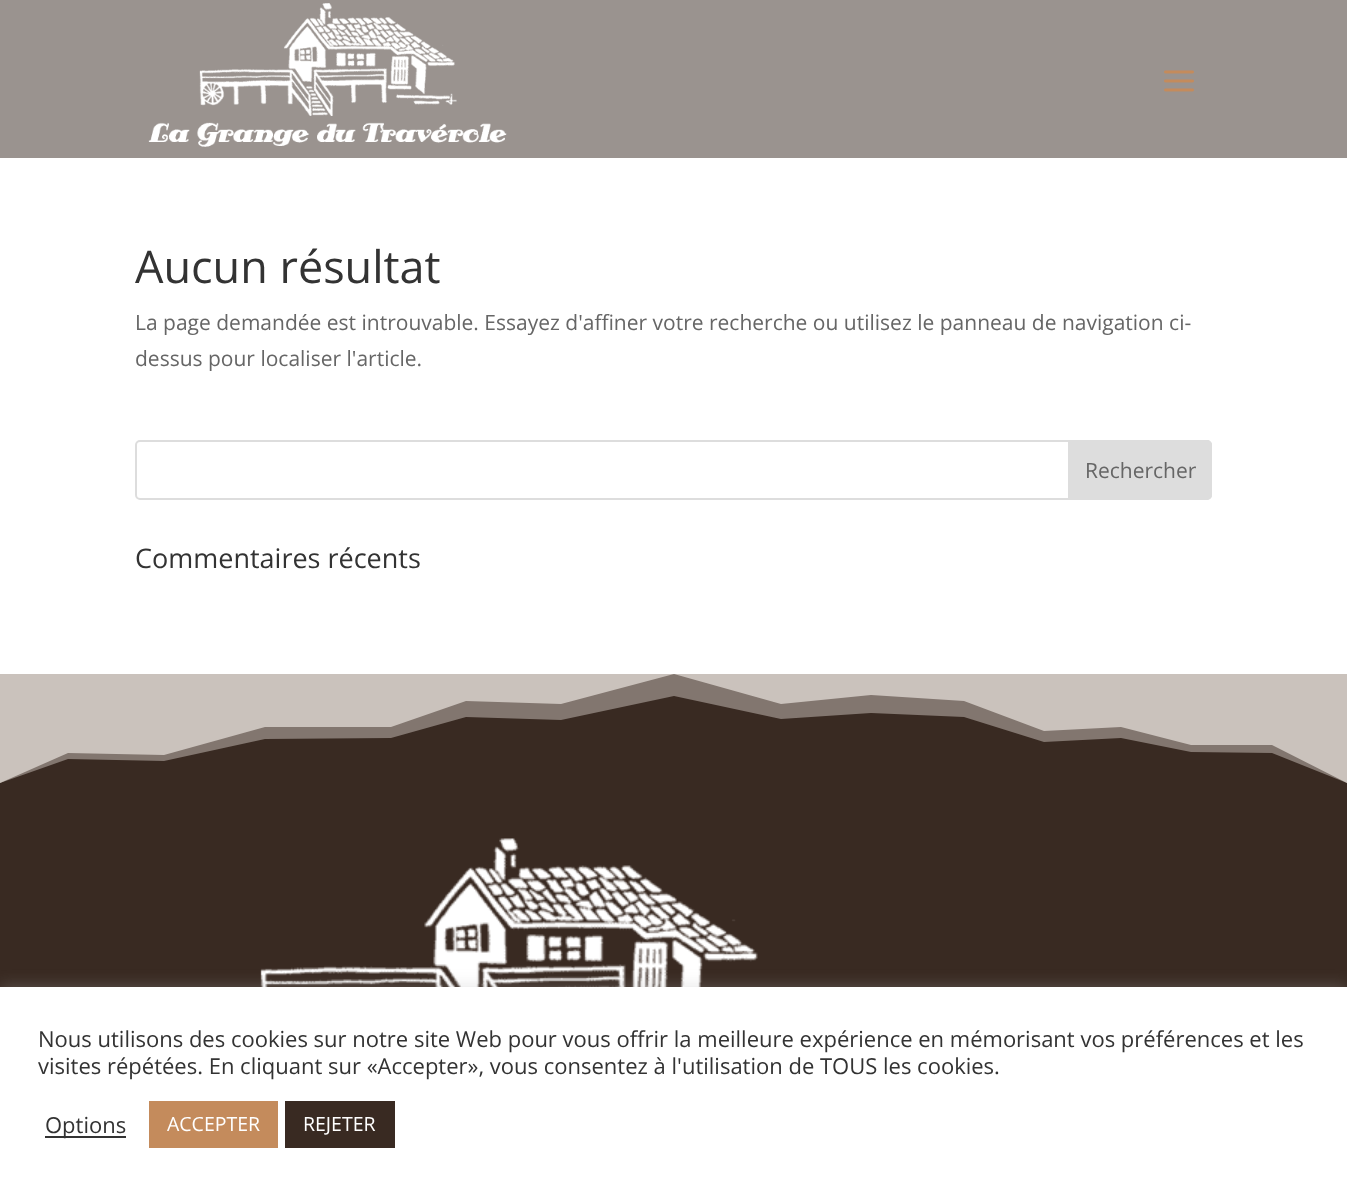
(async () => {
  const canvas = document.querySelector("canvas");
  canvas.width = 1347;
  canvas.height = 1192;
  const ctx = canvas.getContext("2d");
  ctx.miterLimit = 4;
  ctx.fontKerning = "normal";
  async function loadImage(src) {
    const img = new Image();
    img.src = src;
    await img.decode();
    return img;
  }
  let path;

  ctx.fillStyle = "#ffffff";
  ctx.fillRect(0, 0, 1347, 1192);
  ctx.fillStyle = "#9a938f";
  ctx.fillRect(0, 0, 1347, 158);
  ctx.drawImage(await loadImage("img/1.png"), 148, 3, 359, 144);
  ctx.drawImage(await loadImage("img/2.png"), 1164, 70, 30, 22);
  ctx.beginPath();
  ctx.roundRect(136, 441, 1075, 58, 4);
  ctx.strokeStyle = "#dddddd";
  ctx.lineWidth = 2;
  ctx.stroke();
  ctx.fillStyle = "#dddddd";
  ctx.beginPath();
  ctx.roundRect(1069, 441, 142, 58, [0, 4, 4, 0]);
  ctx.fill();
  ctx.stroke();
  ctx.fillStyle = "#392a22";
  ctx.fillRect(0, 696, 1347, 291);
  ctx.save();
  ctx.beginPath();
  ctx.rect(0, 674, 1347, 111);
  ctx.clip();
  ctx.fillStyle = "#82766f";
  path = new Path2D("M0 783L68 759L164 761L265 739L391 738L466 717L561 720L674 696L781 719L871 713L964 717L1044 742L1121 738L1191 752L1272 753L1347 783V672H0Z");
  ctx.fill(path);
  ctx.fillStyle = "#cac2bc";
  path = new Path2D("M0 783L68 753L164 755L265 727H391L466 701L561 704L674 674L781 704L871 695L964 701L1044 731L1121 727L1191 745H1272L1347 783V672H0Z");
  ctx.fill(path);
  ctx.restore();
  ctx.drawImage(await loadImage("img/3.png"), 260, 838, 498, 149);
  ctx.fillStyle = "rgba(172, 171, 171, 0.3)";
  ctx.filter = "blur(7.5px)";
  ctx.beginPath();
  ctx.rect(0, 986, 1347, 205);
  ctx.fill();
  ctx.filter = "none";
  for (const [x, y, w, h, color] of [
    [0, 987, 1347, 205, "#ffffff"],
    [45, 1136, 81, 2, "#333333"],
    [149, 1101, 129, 47, "#c48b5c"],
    [285, 1101, 110, 47, "#392a22"],
  ]) {
    ctx.fillStyle = color;
    ctx.fillRect(x, y, w, h);
  }
  ctx.font = "45px Open Sans";
  ctx.fillStyle = "#333333";
  ctx.fillText("Aucun résultat", 135, 283);
  ctx.font = "21px Open Sans";
  ctx.fillStyle = "#666666";
  for (const [text, x, y] of [
    ["La page demandée est introuvable. Essayez d'affiner votre recherche ou utilisez le panneau de navigation ci-", 135, 330],
    ["dessus pour localiser l'article.", 135, 366],
    ["Rechercher", 1085, 478],
  ]) {
    ctx.fillText(text, x, y);
  }
  ctx.font = "27px Open Sans";
  ctx.fillStyle = "#333333";
  ctx.fillText("Commentaires récents", 135, 568);
  ctx.font = "22px Open Sans";
  for (const [text, x, y] of [
    ["Nous utilisons des cookies sur notre site Web pour vous offrir la meilleure expérience en mémorisant vos préférences et les", 38, 1047],
    ["visites répétées. En cliquant sur «Accepter», vous consentez à l'utilisation de TOUS les cookies.", 38, 1074],
    ["Options", 45, 1133],
  ]) {
    ctx.fillText(text, x, y);
  }
  ctx.font = "19.5px Open Sans";
  ctx.fillStyle = "#ffffff";
  ctx.fillText("ACCEPTER", 167, 1131);
  ctx.fillText("REJETER", 303, 1131);
})();
